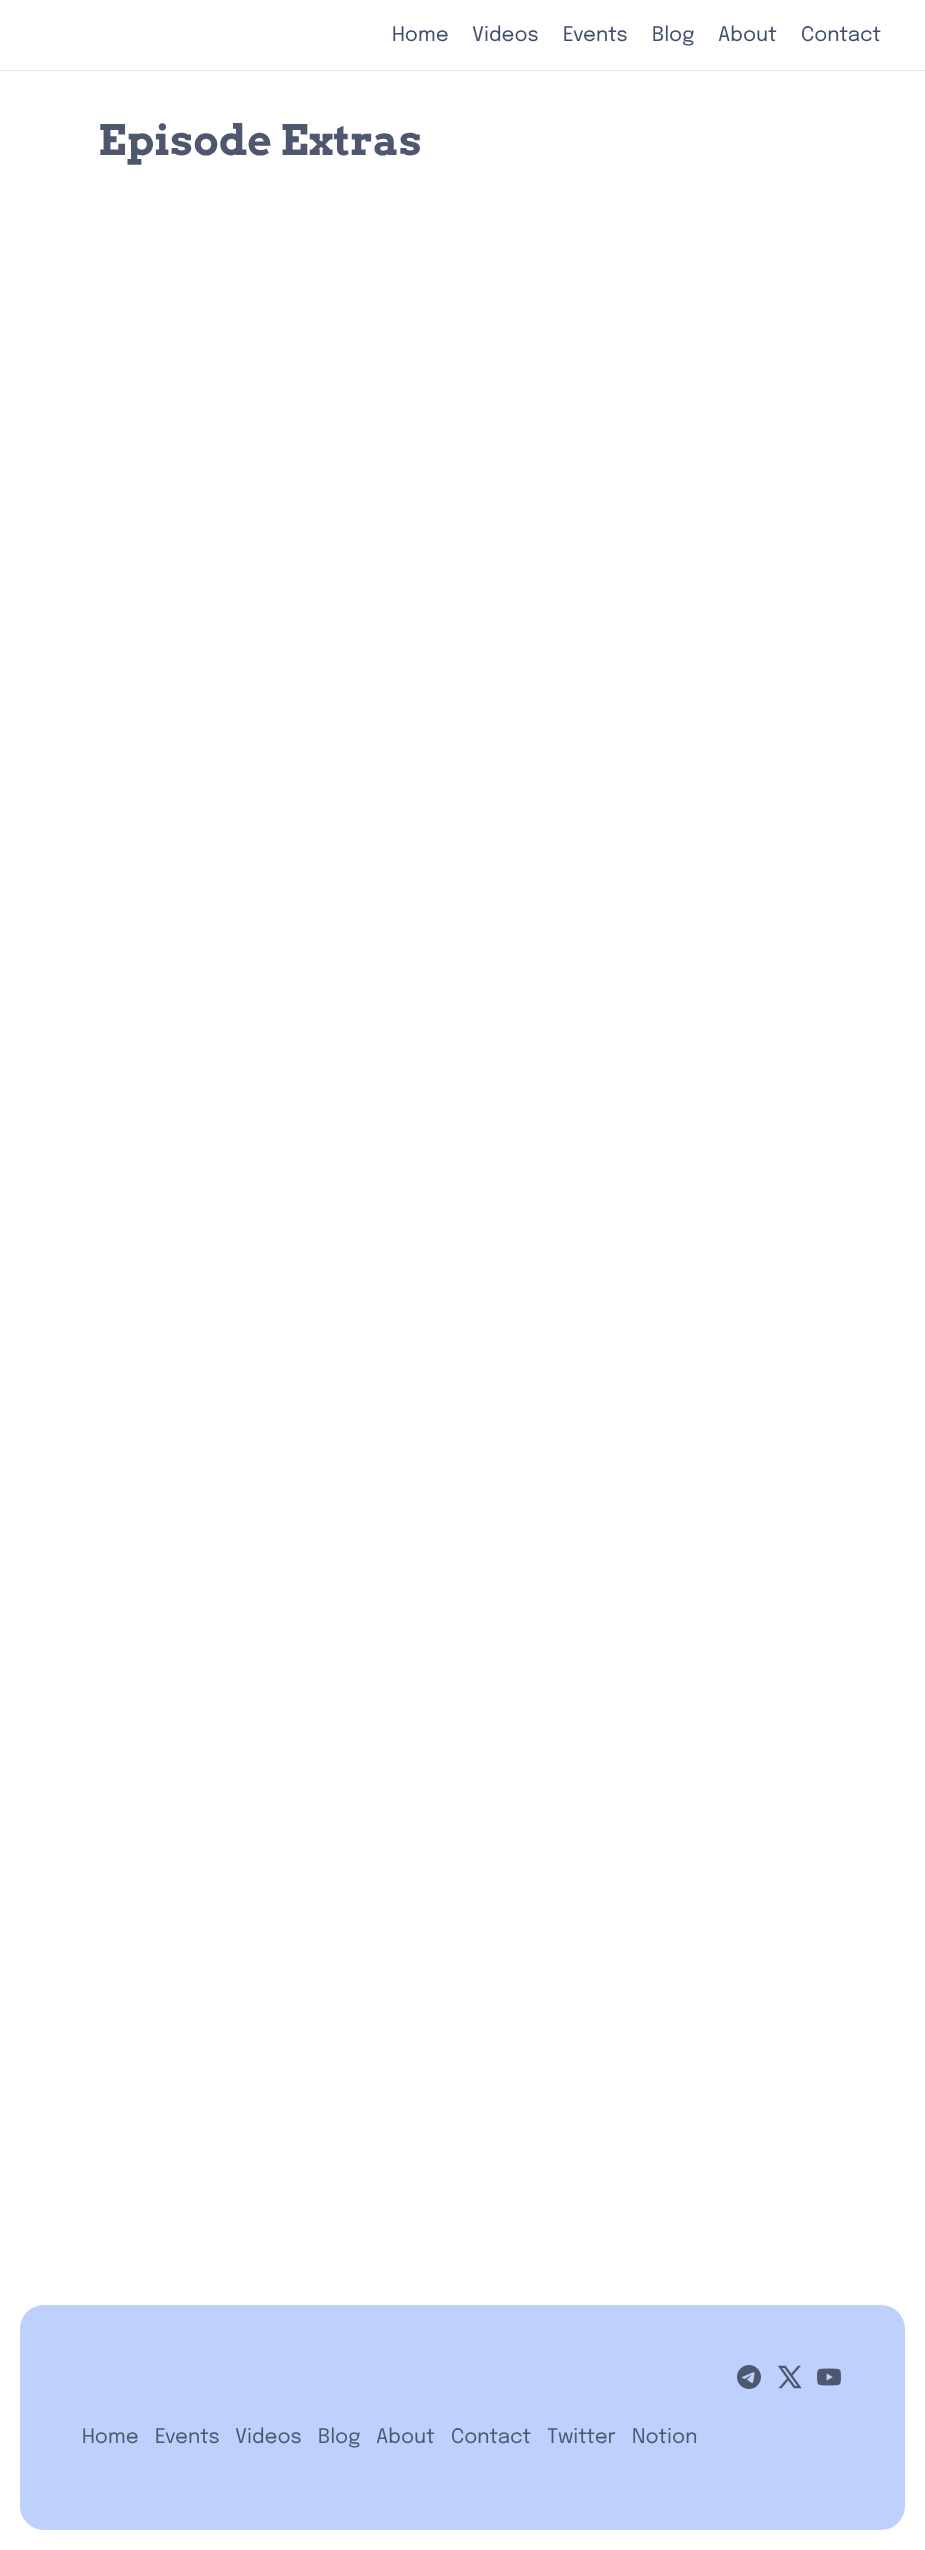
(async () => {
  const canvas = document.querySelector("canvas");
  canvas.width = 925;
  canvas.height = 2550;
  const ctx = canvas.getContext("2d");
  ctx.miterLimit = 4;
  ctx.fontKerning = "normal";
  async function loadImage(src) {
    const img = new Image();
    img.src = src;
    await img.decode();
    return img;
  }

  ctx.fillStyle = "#ffffff";
  ctx.fillRect(0, 0, 925, 2550);
  ctx.save();
  ctx.beginPath();
  ctx.rect(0, 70, 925, 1);
  ctx.clip();
  ctx.fillStyle = "rgba(33, 41, 63, 0.1)";
  ctx.filter = "blur(0.5px)";
  ctx.beginPath();
  ctx.rect(-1, -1, 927, 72);
  ctx.fill();
  ctx.filter = "none";
  ctx.restore();
  ctx.fillStyle = "#bed1fc";
  ctx.beginPath();
  ctx.roundRect(20, 2305, 885, 225, 24);
  ctx.fill();
  ctx.drawImage(await loadImage("img/1.png"), 737, 2365, 24, 24);
  ctx.drawImage(await loadImage("img/2.png"), 777, 2365, 24, 24);
  ctx.drawImage(await loadImage("img/3.png"), 817, 2368, 24, 18);
  ctx.font = "20px Epilogue";
  ctx.fillStyle = "#404e6a";
  for (const [text, x, y] of [
    ["Home", 392, 41],
    ["Videos", 472, 41],
    ["Events", 563, 41],
    ["Blog", 652, 41],
    ["About", 718, 41],
    ["Contact", 801, 41],
  ]) {
    ctx.fillText(text, x, y);
  }
  ctx.font = "bold 42px Arvo";
  ctx.fillStyle = "#4d586f";
  ctx.fillText("Episode Extras", 98, 155);
  ctx.font = "20px Epilogue";
  for (const [text, x, y] of [
    ["Home", 82, 2443],
    ["Events", 155, 2443],
    ["Videos", 235, 2443],
    ["Blog", 318, 2443],
    ["About", 376, 2443],
    ["Contact", 451, 2443],
    ["Twitter", 547, 2443],
    ["Notion", 632, 2443],
  ]) {
    ctx.fillText(text, x, y);
  }
})();
